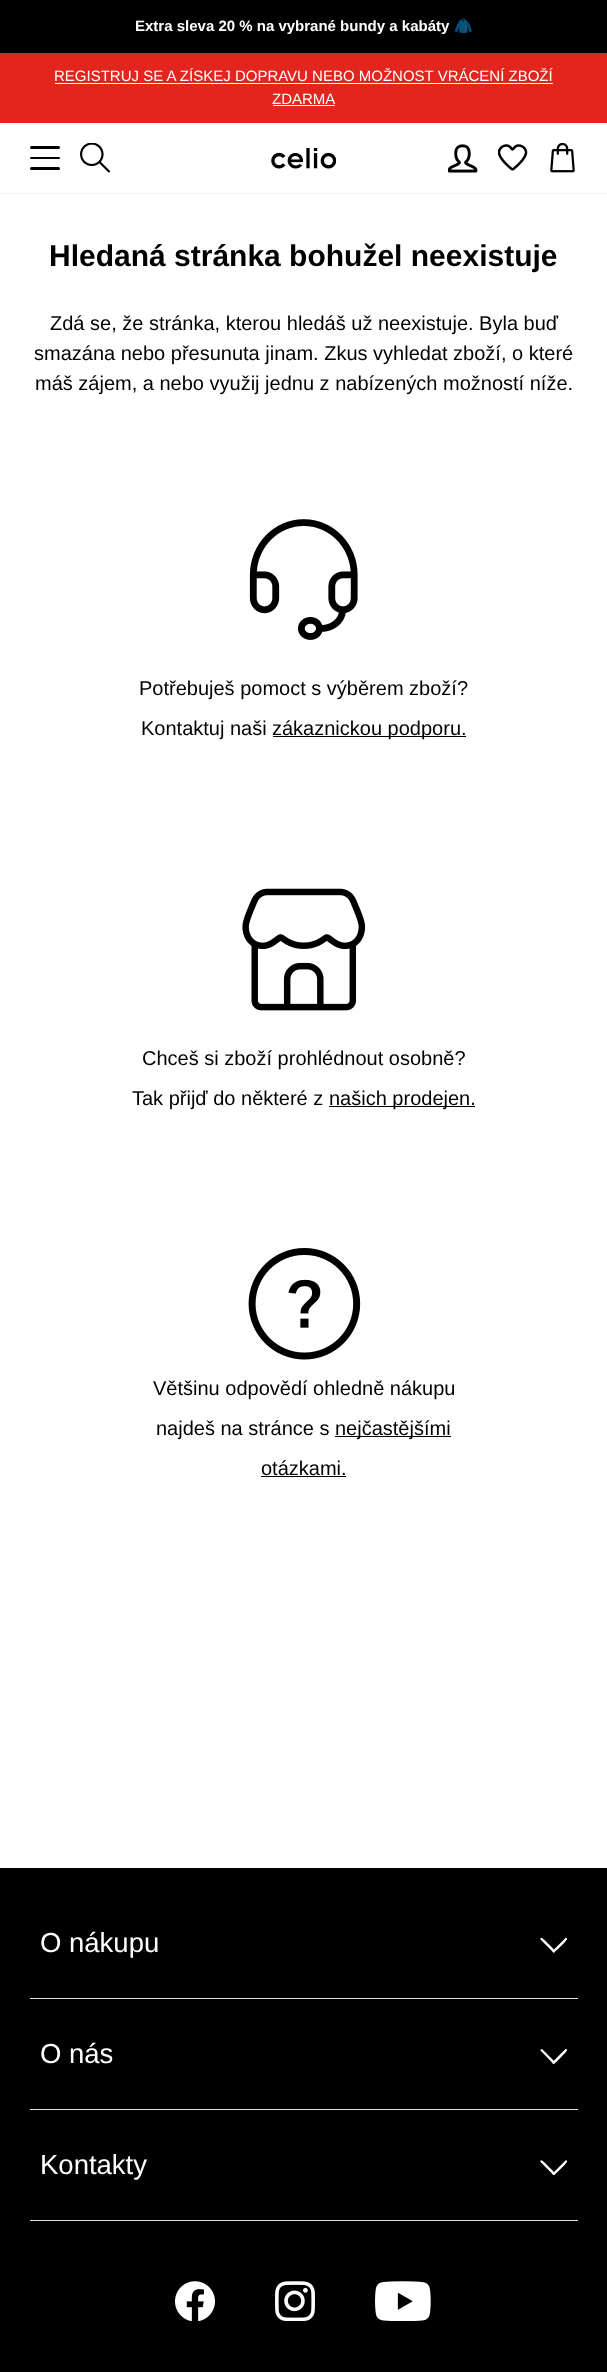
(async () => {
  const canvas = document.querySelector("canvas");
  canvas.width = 607;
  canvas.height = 2372;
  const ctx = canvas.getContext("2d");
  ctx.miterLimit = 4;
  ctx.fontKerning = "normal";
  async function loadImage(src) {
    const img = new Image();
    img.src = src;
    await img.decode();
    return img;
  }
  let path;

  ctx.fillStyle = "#ffffff";
  ctx.fillRect(0, 0, 607, 2372);
  for (const [x, y, w, h, color] of [
    [0, 0, 607, 53, "#000000"],
    [0, 53, 607, 70, "#e2251d"],
    [55, 83, 498, 1, "#ffffff"],
    [273, 105, 62, 1, "#ffffff"],
  ]) {
    ctx.fillStyle = color;
    ctx.fillRect(x, y, w, h);
  }
  ctx.fillStyle = "#000000";
  ctx.beginPath();
  ctx.roundRect(30, 146, 30, 3, 1.5);
  ctx.fill();
  ctx.beginPath();
  ctx.roundRect(30, 157, 30, 2, 1);
  ctx.fill();
  ctx.beginPath();
  ctx.roundRect(30, 167, 30, 3, 1.5);
  ctx.fill();
  ctx.drawImage(await loadImage("img/1.png"), 80, 143, 30, 30);
  ctx.drawImage(await loadImage("img/2.png"), 271, 148, 65, 21);
  ctx.drawImage(await loadImage("img/3.png"), 448, 144, 30, 29);
  ctx.drawImage(await loadImage("img/4.png"), 498, 144, 30, 27);
  ctx.drawImage(await loadImage("img/5.png"), 550, 143, 25, 30);
  ctx.fillStyle = "#f2f2f2";
  ctx.fillRect(0, 193, 607, 1);
  ctx.drawImage(await loadImage("img/6.png"), 249, 519, 109, 121);
  ctx.fillStyle = "#000000";
  ctx.fillRect(273, 736, 193, 1);
  ctx.drawImage(await loadImage("img/7.png"), 242, 888, 124, 123);
  ctx.fillRect(329, 1106, 146, 1);
  ctx.drawImage(await loadImage("img/8.png"), 248, 1248, 113, 112);
  for (const [x, y, w, h, color] of [
    [335, 1436, 116, 1, "#000000"],
    [261, 1476, 85, 1, "#000000"],
    [0, 1868, 607, 504, "#000000"],
    [30, 1998, 548, 1, "#e0e0e0"],
  ]) {
    ctx.fillStyle = color;
    ctx.fillRect(x, y, w, h);
  }
  ctx.fillStyle = "#ffffff";
  path = new Path2D("M553 1950.5L565.5 1938C566.5 1937.5 567.5 1938.5 567 1939.5L565 1942C563.5 1943.5 555 1952.5 553.5 1952.5C552.5 1952.5 552 1951 553 1950.5Z");
  ctx.fill(path);
  path = new Path2D("M553 1952L540.5 1939.5C540 1938.5 541 1937.5 542 1938L544.5 1940C546 1941.5 555 1950 555 1951.5C555 1952.5 553.5 1953 553 1952Z");
  ctx.fill(path);
  ctx.fillStyle = "#e0e0e0";
  ctx.fillRect(30, 2109, 548, 1);
  ctx.fillStyle = "#ffffff";
  path = new Path2D("M553 2061.5L565.5 2049C566.5 2049 567.5 2049.5 567 2050.5L565 2053C563.5 2054.5 555 2064 553.5 2064C552.5 2064 552 2062.5 553 2061.5Z");
  ctx.fill(path);
  path = new Path2D("M553 2063.5L540.5 2050.5C540 2050 541 2049 542 2049L544.5 2051.5C546 2053 555 2061.5 555 2062.5C555 2063.5 553.5 2064 553 2063.5Z");
  ctx.fill(path);
  ctx.fillStyle = "#e0e0e0";
  ctx.fillRect(30, 2220, 548, 1);
  ctx.fillStyle = "#ffffff";
  path = new Path2D("M553 2173L565.5 2160.5C566.5 2160 567.5 2161 567 2162L565 2164.5C563.5 2166 555 2175 554 2175C552.5 2175 552 2173.5 553 2173Z");
  ctx.fill(path);
  path = new Path2D("M553 2174.5L540.5 2162C540 2161 541 2160 542 2160.5L544.5 2162.5C546 2164 555 2172.5 555 2174C555 2175 553.5 2175.5 553 2174.5Z");
  ctx.fill(path);
  ctx.drawImage(await loadImage("img/9.png"), 175, 2281, 40, 40);
  ctx.drawImage(await loadImage("img/10.png"), 275, 2281, 40, 40);
  ctx.drawImage(await loadImage("img/11.png"), 375, 2281, 56, 40);
  ctx.font = "bold 15px Liberation Sans";
  ctx.fillText("Extra sleva 20 % na vybrané bundy a kabáty", 135, 31);
  ctx.font = "bold 15px Noto Color Emoji";
  ctx.fillText("🧥", 454, 31);
  ctx.font = "15px Liberation Sans";
  ctx.fillText("REGISTRUJ SE A ZÍSKEJ DOPRAVU NEBO MOŽNOST VRÁCENÍ ZBOŽÍ", 54, 81);
  ctx.fillText("ZDARMA", 272, 104);
  ctx.font = "bold 30px Liberation Sans";
  ctx.fillStyle = "#000000";
  ctx.fillText("Hledaná stránka bohužel neexistuje", 49, 266);
  ctx.font = "20px Liberation Sans";
  for (const [text, x, y] of [
    ["Zdá se, že stránka, kterou hledáš už neexistuje. Byla buď", 50, 330],
    ["smazána nebo přesunuta jinam. Zkus vyhledat zboží, o které", 34, 360],
    ["máš zájem, a nebo využij jednu z nabízených možností níže.", 35, 390],
    ["Potřebuješ pomoct s výběrem zboží?", 139, 695],
    ["Kontaktuj naši", 141, 735],
    ["zákaznickou podporu.", 272, 735],
    ["Chceš si zboží prohlédnout osobně?", 142, 1065],
    ["Tak přijď do některé z", 132, 1105],
    ["našich prodejen.", 329, 1105],
    ["Většinu odpovědí ohledně nákupu", 153, 1395],
    ["najdeš na stránce s", 156, 1435],
    ["nejčastějšími", 335, 1435],
    ["otázkami.", 261, 1475],
  ]) {
    ctx.fillText(text, x, y);
  }
  ctx.font = "27.5px Liberation Sans";
  ctx.fillStyle = "#ffffff";
  for (const [text, x, y] of [
    ["O nákupu", 40, 1952],
    ["O nás", 40, 2063],
    ["Kontakty", 40, 2174],
  ]) {
    ctx.fillText(text, x, y);
  }
})();
